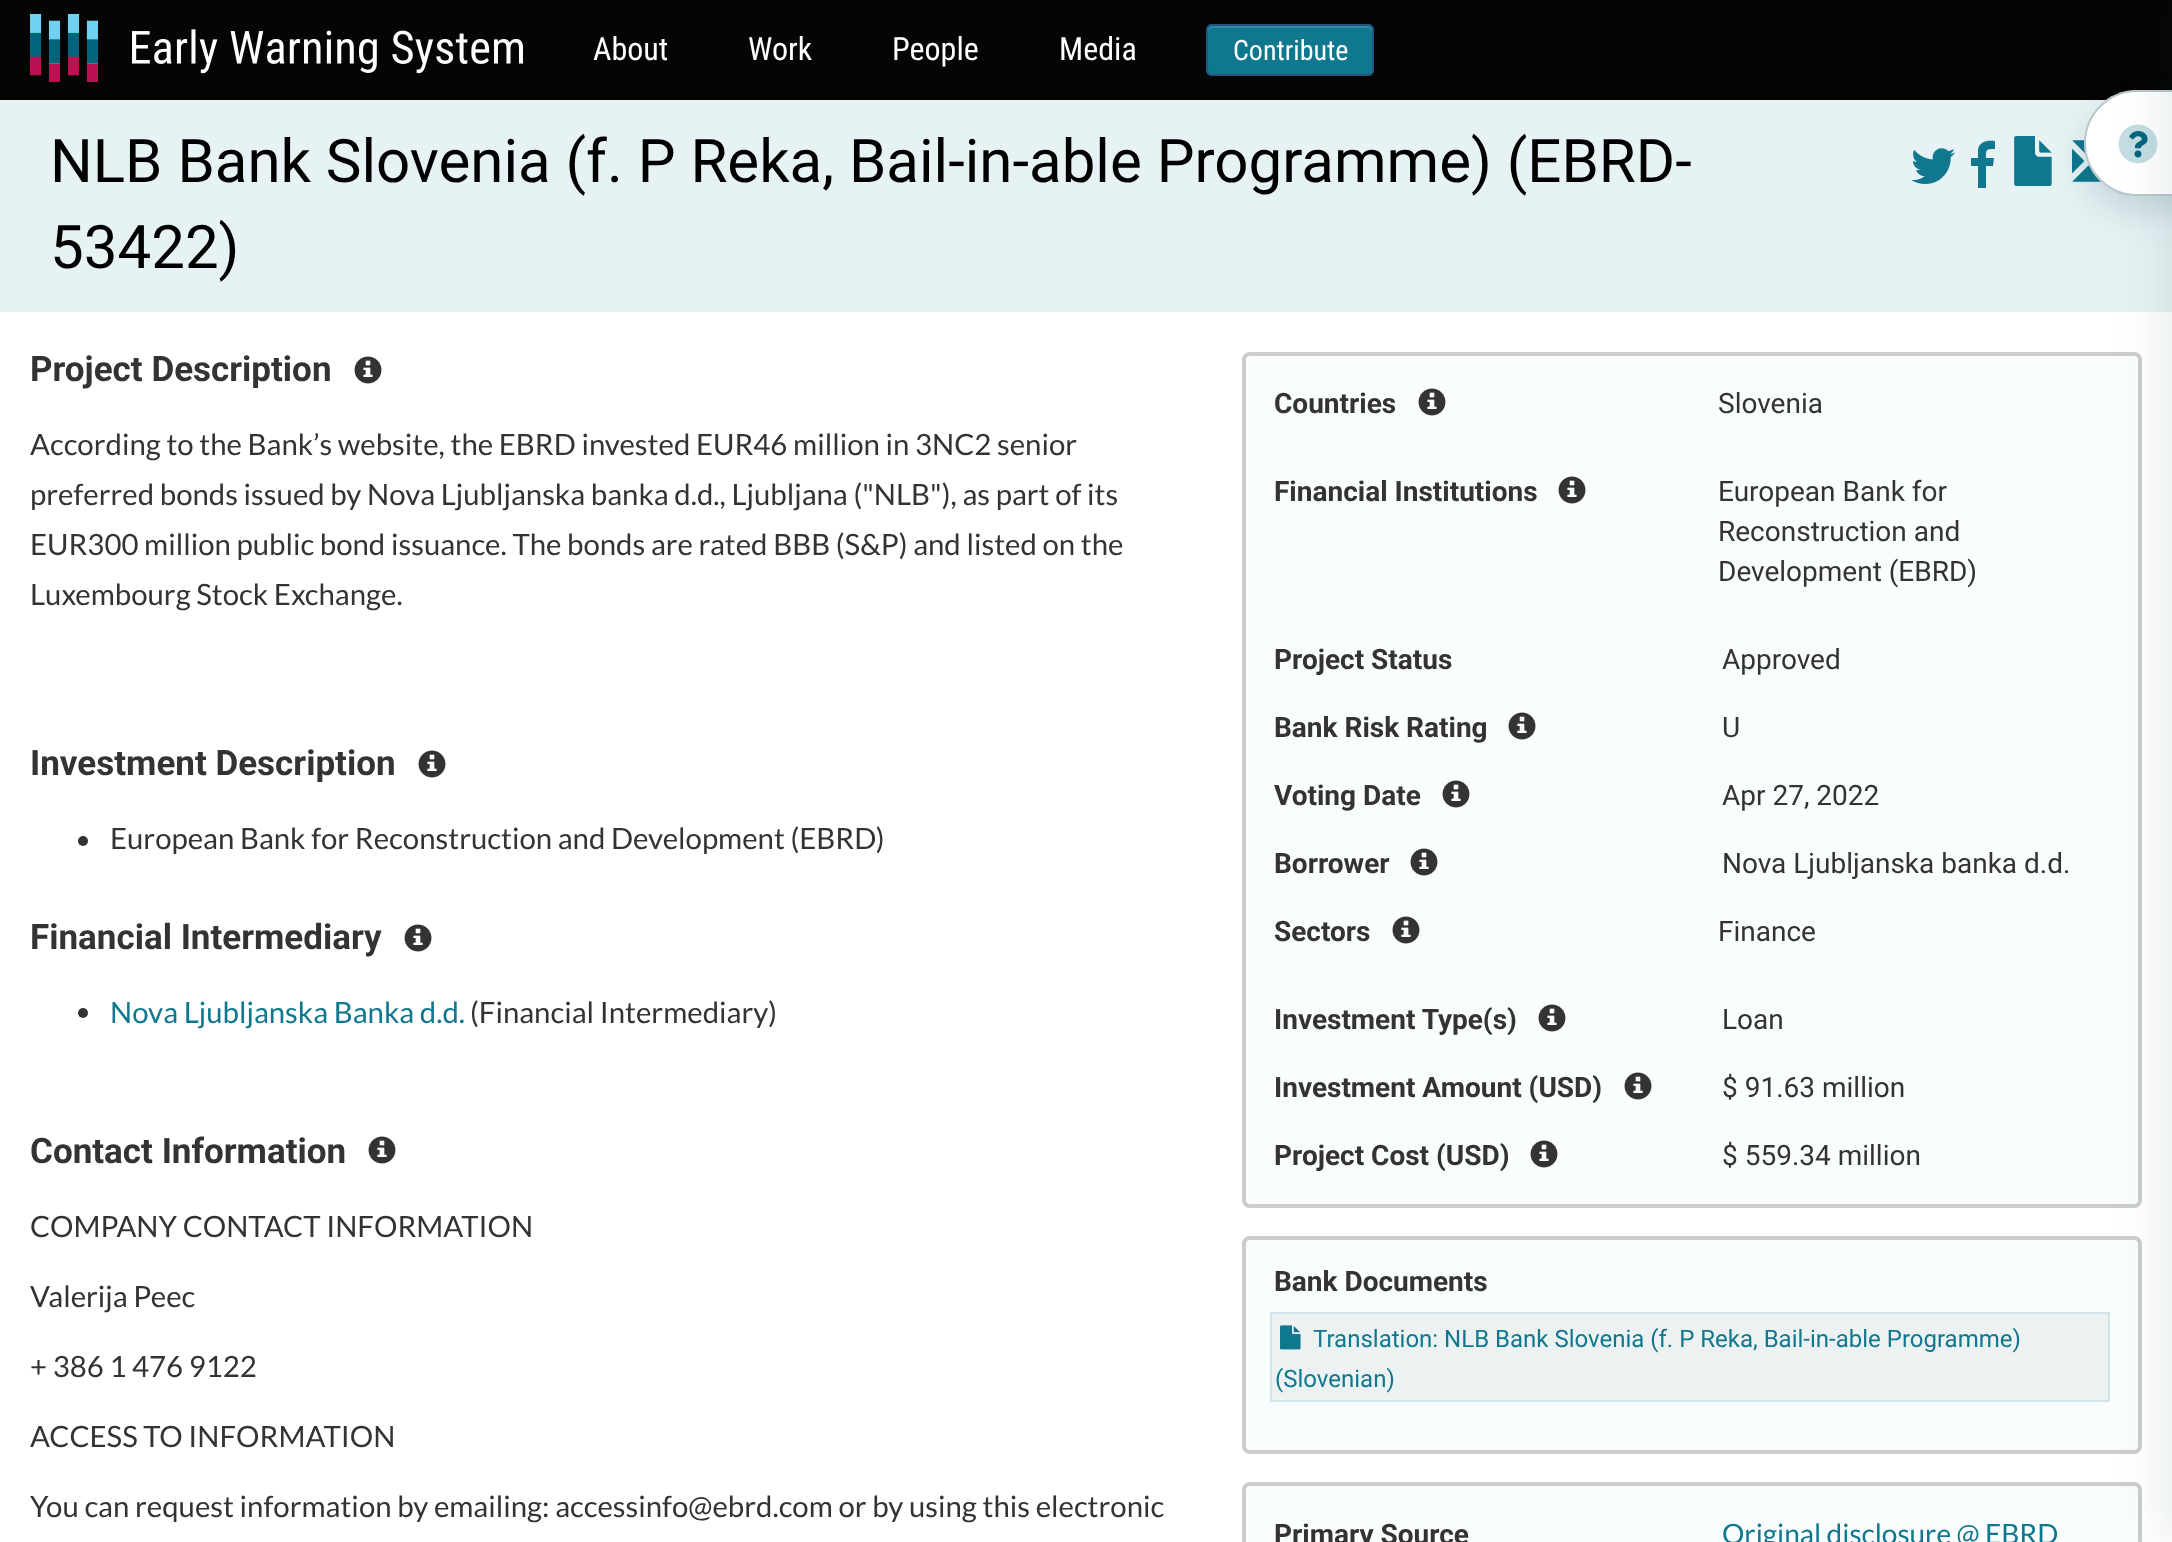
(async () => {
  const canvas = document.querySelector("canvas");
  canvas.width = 2172;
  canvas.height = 1542;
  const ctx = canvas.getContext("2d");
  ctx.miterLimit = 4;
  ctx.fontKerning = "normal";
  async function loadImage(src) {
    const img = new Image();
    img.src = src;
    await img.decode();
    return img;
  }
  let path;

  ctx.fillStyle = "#ffffff";
  ctx.fillRect(0, 0, 2172, 1542);
  ctx.fillStyle = "#050504";
  ctx.fillRect(0, 0, 2172, 100);
  ctx.drawImage(await loadImage("img/1.png"), 30, 14, 493, 68);
  ctx.fillStyle = "#0f778e";
  ctx.beginPath();
  ctx.roundRect(1206, 24, 168, 52, 6);
  ctx.fill();
  ctx.fillStyle = "#338b9f";
  path = new Path2D("M1212 28H1368C1370 28 1372 30 1372 32V30C1372 28 1370 26 1368 26H1212C1210 26 1208 28 1208 30V32C1208 30 1210 28 1212 28Z");
  ctx.fill(path);
  ctx.beginPath();
  ctx.roundRect(1207, 25, 166, 50, 5);
  ctx.strokeStyle = "#245580";
  ctx.lineWidth = 2;
  ctx.stroke();
  ctx.fillStyle = "#e6f2f4";
  ctx.fillRect(0, 100, 2172, 212);
  ctx.drawImage(await loadImage("img/4.png"), 2072, 140, 30, 42);
  ctx.drawImage(await loadImage("img/3.png"), 2014, 136, 38, 50);
  ctx.fillStyle = "rgba(14, 56, 65, 0.15)";
  ctx.filter = "blur(16px)";
  ctx.beginPath();
  ctx.roundRect(2084, 106, 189, 106, 53);
  ctx.fill();
  ctx.filter = "none";
  ctx.fillStyle = "#ffffff";
  path = new Path2D("M2137 90H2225V196H2137C2107.5 196 2084 172.5 2084 143C2084 113.5 2107.5 90 2137 90Z");
  ctx.fill(path);
  path = new Path2D("M2137 91H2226V195H2137C2108.5 195 2085 171.5 2085 143C2085 114.5 2108.5 91 2137 91Z");
  ctx.strokeStyle = "rgba(19, 73, 84, 0.3)";
  ctx.stroke(path);
  ctx.drawImage(await loadImage("img/5.png"), 2118, 124, 40, 40);
  ctx.fillStyle = "#fafdfd";
  ctx.beginPath();
  ctx.roundRect(1244, 354, 896, 852, 6);
  ctx.fill();
  ctx.strokeStyle = "#cccccc";
  ctx.lineWidth = 4;
  ctx.stroke();
  ctx.beginPath();
  ctx.roundRect(1244, 1238, 896, 214, 6);
  ctx.fill();
  ctx.stroke();
  ctx.fillStyle = "#ecf1f1";
  ctx.beginPath();
  ctx.rect(1271, 1313, 838, 88);
  ctx.fill();
  ctx.strokeStyle = "#d1e5e9";
  ctx.lineWidth = 2;
  ctx.stroke();
  ctx.fillStyle = "#fafdfd";
  ctx.beginPath();
  ctx.roundRect(1244, 1484, 896, 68, 6);
  ctx.fill();
  ctx.strokeStyle = "#cccccc";
  ctx.lineWidth = 4;
  ctx.stroke();
  ctx.fillStyle = "rgba(14, 56, 65, 0.1)";
  ctx.filter = "blur(24px)";
  ctx.beginPath();
  ctx.rect(2164, 0, 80, 1542);
  ctx.fill();
  ctx.filter = "none";
  ctx.drawImage(await loadImage("img/2.png"), 1911, 148, 44, 36);
  ctx.fillStyle = "#0f778e";
  path = new Path2D("M1995 141V149C1986 149 1986 149 1986 158H1994L1993 166H1986V188H1978V166H1971V158H1978V150C1979 141 1988 140 1995 141Z");
  ctx.fill(path);
  ctx.drawImage(await loadImage("img/6.png"), 354, 356, 28, 28);
  ctx.drawImage(await loadImage("img/7.png"), 1418, 388, 28, 28);
  ctx.drawImage(await loadImage("img/7.png"), 1558, 476, 28, 28);
  ctx.drawImage(await loadImage("img/7.png"), 1508, 712, 28, 28);
  ctx.drawImage(await loadImage("img/7.png"), 1442, 780, 28, 28);
  ctx.drawImage(await loadImage("img/7.png"), 1410, 848, 28, 28);
  ctx.drawImage(await loadImage("img/7.png"), 1392, 916, 28, 28);
  ctx.drawImage(await loadImage("img/7.png"), 1538, 1004, 28, 28);
  ctx.drawImage(await loadImage("img/7.png"), 1624, 1072, 28, 28);
  ctx.drawImage(await loadImage("img/7.png"), 1530, 1140, 28, 28);
  ctx.drawImage(await loadImage("img/8.png"), 1280, 1325, 21, 25);
  ctx.drawImage(await loadImage("img/6.png"), 418, 750, 28, 28);
  ctx.fillStyle = "#333333";
  ctx.beginPath();
  ctx.arc(83, 841, 5, 0, Math.PI * 2);
  ctx.fill();
  ctx.drawImage(await loadImage("img/6.png"), 404, 924, 28, 28);
  ctx.beginPath();
  ctx.arc(83, 1013, 5, 0, Math.PI * 2);
  ctx.fill();
  ctx.drawImage(await loadImage("img/6.png"), 368, 1136, 28, 28);
  ctx.font = "32px Roboto Condensed";
  ctx.fillStyle = "#ffffff";
  for (const [text, x, y] of [
    ["About", 593, 60],
    ["Work", 748, 60],
    ["People", 892, 60],
    ["Media", 1059, 60],
  ]) {
    ctx.fillText(text, x, y);
  }
  ctx.font = "28px Roboto Condensed";
  ctx.fillText("Contribute", 1233, 60);
  ctx.font = "60px Roboto";
  ctx.fillStyle = "#000000";
  ctx.fillText("NLB Bank Slovenia (f. P Reka, Bail-in-able Programme) (EBRD-", 50, 182);
  ctx.fillText("53422)", 50, 268);
  ctx.font = "bold 35px Roboto";
  ctx.fillStyle = "#333333";
  ctx.fillText("Project Description", 30, 381);
  ctx.font = "29.35px Lato";
  for (const [text, x, y] of [
    ["According to the Bank’s website, the EBRD invested EUR46 million in 3NC2 senior", 30, 455],
    ["preferred bonds issued by Nova Ljubljanska banka d.d., Ljubljana (\"NLB\"), as part of its", 30, 505],
    ["EUR300 million public bond issuance. The bonds are rated BBB (S&P) and listed on the", 30, 555],
    ["Luxembourg Stock Exchange.", 30, 605],
  ]) {
    ctx.fillText(text, x, y);
  }
  ctx.font = "bold 28px Roboto";
  ctx.fillText("Countries", 1274, 413);
  ctx.font = "28px Roboto";
  ctx.fillText("Slovenia", 1718, 413);
  ctx.font = "bold 28px Roboto";
  ctx.fillText("Financial Institutions", 1274, 501);
  ctx.font = "28px Roboto";
  for (const [text, x, y] of [
    ["European Bank for", 1718, 501],
    ["Reconstruction and", 1718, 541],
    ["Development (EBRD)", 1718, 581],
  ]) {
    ctx.fillText(text, x, y);
  }
  ctx.font = "bold 28px Roboto";
  ctx.fillText("Project Status", 1274, 669);
  ctx.font = "28px Roboto";
  ctx.fillText("Approved", 1722, 669);
  ctx.font = "bold 28px Roboto";
  ctx.fillText("Bank Risk Rating", 1274, 737);
  ctx.font = "28px Roboto";
  ctx.fillText("U", 1722, 737);
  ctx.font = "bold 28px Roboto";
  ctx.fillText("Voting Date", 1274, 805);
  ctx.font = "28px Roboto";
  ctx.fillText("Apr 27, 2022", 1722, 805);
  ctx.font = "bold 28px Roboto";
  ctx.fillText("Borrower", 1274, 873);
  ctx.font = "28px Roboto";
  ctx.fillText("Nova Ljubljanska banka d.d.", 1722, 873);
  ctx.font = "bold 28px Roboto";
  ctx.fillText("Sectors", 1274, 941);
  ctx.font = "28px Roboto";
  ctx.fillText("Finance", 1718, 941);
  ctx.font = "bold 28px Roboto";
  ctx.fillText("Investment Type(s)", 1274, 1029);
  ctx.font = "28px Roboto";
  ctx.fillText("Loan", 1722, 1029);
  ctx.font = "bold 28px Roboto";
  ctx.fillText("Investment Amount (USD)", 1274, 1097);
  ctx.font = "28px Roboto";
  ctx.fillText("$ 91.63 million", 1722, 1097);
  ctx.font = "bold 28px Roboto";
  ctx.fillText("Project Cost (USD)", 1274, 1165);
  ctx.font = "28px Roboto";
  ctx.fillText("$ 559.34 million", 1722, 1165);
  ctx.font = "bold 28px Roboto";
  ctx.fillText("Bank Documents", 1274, 1291);
  ctx.font = "24px Roboto";
  ctx.fillStyle = "#0f778e";
  ctx.fillText("Translation: NLB Bank Slovenia (f. P Reka, Bail-in-able Programme)", 1313, 1347);
  ctx.fillText("(Slovenian)", 1275, 1387);
  ctx.font = "bold 28px Roboto";
  ctx.fillStyle = "#333333";
  ctx.fillText("Primary Source", 1274, 1544);
  ctx.font = "28px Lato";
  ctx.fillStyle = "#0f778e";
  ctx.fillText("Original disclosure @ EBRD", 1722, 1544);
  ctx.font = "bold 35px Roboto";
  ctx.fillStyle = "#333333";
  ctx.fillText("Investment Description", 30, 775);
  ctx.font = "29.35px Lato";
  ctx.fillText("European Bank for Reconstruction and Development (EBRD)", 110, 849);
  ctx.font = "bold 35px Roboto";
  ctx.fillText("Financial Intermediary", 30, 949);
  ctx.font = "29.35px Lato";
  ctx.fillStyle = "#0f778e";
  ctx.fillText("Nova Ljubljanska Banka d.d.", 110, 1023);
  ctx.fillStyle = "#333333";
  ctx.fillText("(Financial Intermediary)", 470, 1023);
  ctx.font = "bold 35px Roboto";
  ctx.fillText("Contact Information", 30, 1163);
  ctx.font = "29.35px Lato";
  for (const [text, x, y] of [
    ["COMPANY CONTACT INFORMATION", 30, 1237],
    ["Valerija Peec", 30, 1307],
    ["+ 386 1 476 9122", 30, 1377],
    ["ACCESS TO INFORMATION", 30, 1447],
    ["You can request information by emailing: accessinfo@ebrd.com or by using this electronic", 30, 1517],
  ]) {
    ctx.fillText(text, x, y);
  }
})();
